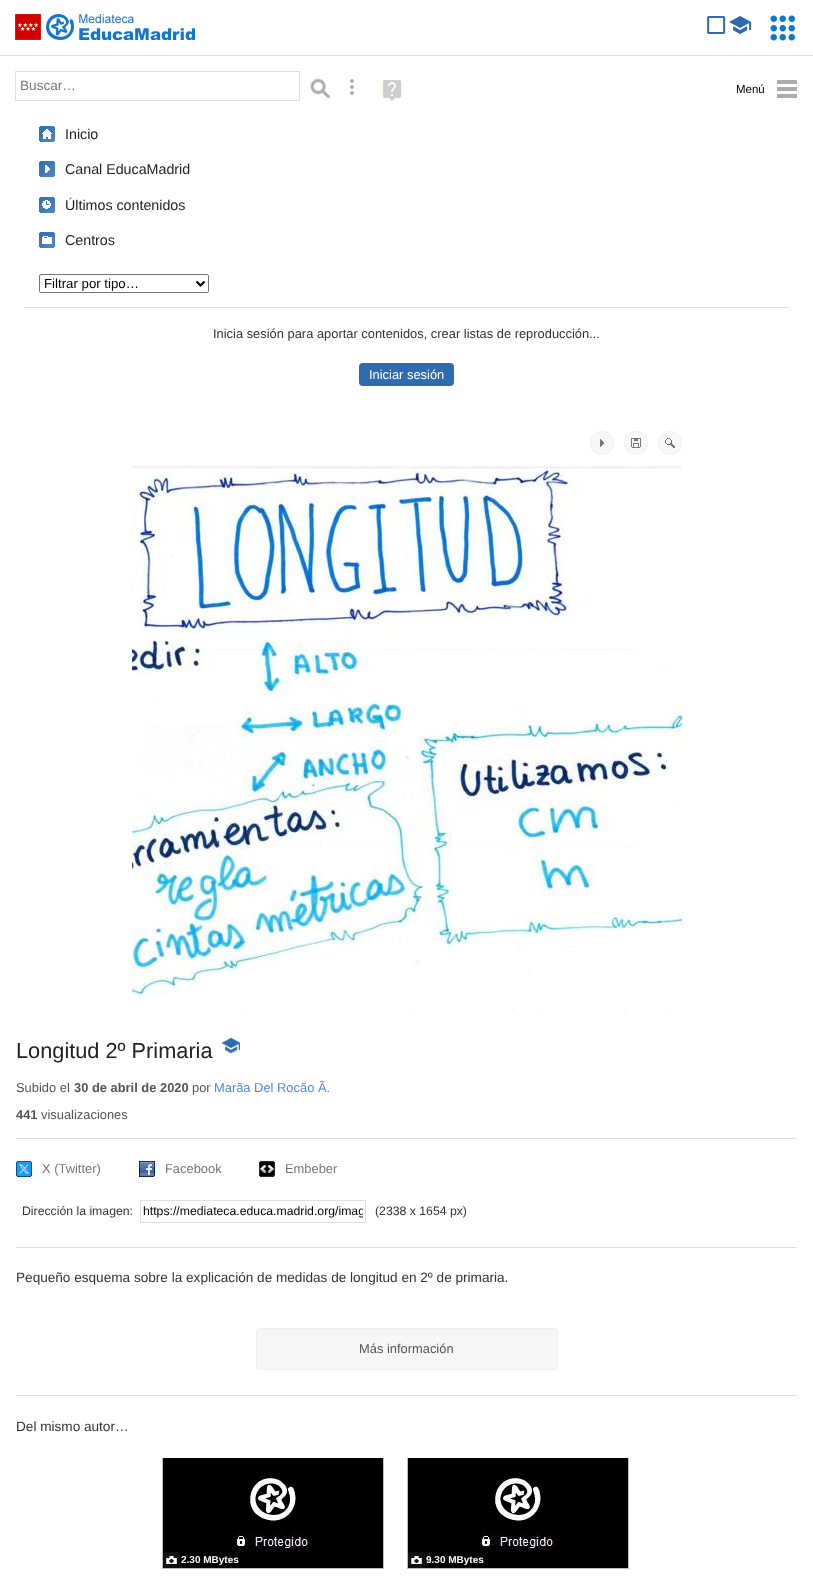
(async () => {
  const canvas = document.querySelector("canvas");
  canvas.width = 813;
  canvas.height = 1576;
  const ctx = canvas.getContext("2d");
  ctx.miterLimit = 4;
  ctx.fontKerning = "normal";
  async function loadImage(src) {
    const img = new Image();
    img.src = src;
    await img.decode();
    return img;
  }
  let path;

  ctx.fillStyle = "#ffffff";
  ctx.fillRect(0, 0, 813, 1576);
  ctx.drawImage(await loadImage("img/1.png"), 770, 15, 25, 26);
  ctx.fillStyle = "#e0e0e0";
  ctx.fillRect(0, 55, 813, 1);
  ctx.drawImage(await loadImage("img/2.png"), 15, 14, 180, 26);
  ctx.drawImage(await loadImage("img/3.png"), 706, 16, 46, 18);
  ctx.strokeStyle = "#e0e0e0";
  ctx.strokeRect(15.5, 71.5, 284, 29);
  ctx.drawImage(await loadImage("img/4.png"), 310, 78, 20, 21);
  ctx.drawImage(await loadImage("img/5.png"), 350, 79, 4, 16);
  ctx.drawImage(await loadImage("img/6.png"), 382, 80, 20, 21);
  ctx.drawImage(await loadImage("img/7.png"), 777, 80, 20, 18);
  ctx.drawImage(await loadImage("img/8.png"), 39, 126, 16, 16);
  ctx.drawImage(await loadImage("img/9.png"), 39, 161, 16, 16);
  ctx.drawImage(await loadImage("img/10.png"), 39, 197, 16, 16);
  ctx.drawImage(await loadImage("img/11.png"), 39, 232, 16, 16);
  ctx.beginPath();
  ctx.roundRect(39.5, 274.5, 169, 18, 1.5);
  ctx.strokeStyle = "#767676";
  ctx.stroke();
  path = new Path2D("M196.5 281.5L200.5 285.5L204.5 281.5");
  ctx.strokeStyle = "#000000";
  ctx.lineWidth = 2;
  ctx.stroke(path);
  ctx.fillRect(24, 307, 765, 1);
  ctx.fillStyle = "#2f6bb0";
  ctx.beginPath();
  ctx.roundRect(359, 363, 95, 23, 4);
  ctx.fill();
  ctx.drawImage(await loadImage("img/12.png"), 590, 431, 24, 24);
  ctx.drawImage(await loadImage("img/13.png"), 624, 431, 24, 24);
  ctx.drawImage(await loadImage("img/14.png"), 658, 431, 24, 24);
  ctx.drawImage(await loadImage("img/15.png"), 132, 465, 550, 550);
  ctx.drawImage(await loadImage("img/16.png"), 221, 1037, 19, 17);
  ctx.fillStyle = "#e0e0e0";
  ctx.fillRect(16, 1138, 781, 1);
  ctx.fillRect(16, 1247, 781, 1);
  ctx.drawImage(await loadImage("img/17.png"), 16, 1161, 16, 16);
  ctx.drawImage(await loadImage("img/18.png"), 139, 1161, 16, 16);
  ctx.drawImage(await loadImage("img/19.png"), 259, 1161, 16, 16);
  ctx.strokeStyle = "#e0e0e0";
  ctx.lineWidth = 1;
  ctx.strokeRect(140.5, 1200.5, 225, 22);
  ctx.fillStyle = "#f6f6f6";
  ctx.beginPath();
  ctx.roundRect(256.5, 1328.5, 301, 41, 2.5);
  ctx.fill();
  ctx.strokeStyle = "#eeeeee";
  ctx.stroke();
  ctx.fillStyle = "#e0e0e0";
  ctx.fillRect(16, 1395, 781, 1);
  ctx.strokeStyle = "#bbbbbb";
  ctx.strokeRect(162.5, 1458.5, 221, 110);
  ctx.drawImage(await loadImage("img/20.png"), 163, 1458, 220, 96);
  ctx.fillStyle = "#000000";
  ctx.beginPath();
  ctx.roundRect(163, 1552, 220, 16, [0, 2, 0, 0]);
  ctx.fill();
  ctx.drawImage(await loadImage("img/21.png"), 163, 1552, 17, 16);
  ctx.strokeRect(407.5, 1458.5, 221, 110);
  ctx.drawImage(await loadImage("img/20.png"), 408, 1458, 220, 96);
  ctx.beginPath();
  ctx.roundRect(408, 1552, 220, 16, [0, 2, 0, 0]);
  ctx.fill();
  ctx.drawImage(await loadImage("img/21.png"), 408, 1552, 17, 16);
  ctx.font = "13.6px Liberation Sans";
  ctx.fillStyle = "#757575";
  ctx.fillText("Buscar…", 20, 90);
  ctx.font = "11.5px Liberation Sans";
  ctx.fillStyle = "#000000";
  ctx.fillText("Menú", 736, 93);
  ctx.font = "14.25px Liberation Sans";
  ctx.fillStyle = "#222222";
  for (const [text, x, y] of [
    ["Inicio", 65, 139],
    ["Canal EducaMadrid", 65, 174],
    ["Últimos contenidos", 65, 210],
    ["Centros", 65, 245],
  ]) {
    ctx.fillText(text, x, y);
  }
  ctx.font = "13.25px Liberation Sans";
  ctx.fillStyle = "#000000";
  ctx.fillText("Filtrar por tipo…", 44, 288);
  ctx.font = "12.9px Liberation Sans";
  ctx.fillStyle = "#333333";
  ctx.fillText("Inicia sesión para aportar contenidos, crear listas de reproducción...", 213, 338);
  ctx.fillStyle = "#ffffff";
  ctx.fillText("Iniciar sesión", 369, 379);
  ctx.font = "21.75px Liberation Sans";
  ctx.fillStyle = "#222222";
  ctx.fillText("Longitud 2º Primaria", 16, 1058);
  ctx.font = "12.9px Liberation Sans";
  ctx.fillStyle = "#555555";
  ctx.fillText("Subido el", 16, 1092);
  ctx.font = "bold 12.9px Liberation Sans";
  ctx.fillText("30 de abril de 2020", 74, 1092);
  ctx.font = "12.9px Liberation Sans";
  ctx.fillText("por", 192, 1092);
  ctx.fillStyle = "#4e8ad0";
  ctx.fillText("Marãa Del Rocão Ã.", 214, 1092);
  ctx.font = "bold 12.9px Liberation Sans";
  ctx.fillStyle = "#555555";
  ctx.fillText("441", 16, 1119);
  ctx.font = "12.9px Liberation Sans";
  ctx.fillText("visualizaciones", 41, 1119);
  ctx.fillStyle = "#757575";
  for (const [text, x, y] of [
    ["X (Twitter)", 42, 1173],
    ["Facebook", 165, 1173],
    ["Embeber", 285, 1173],
  ]) {
    ctx.fillText(text, x, y);
  }
  ctx.font = "12.25px Liberation Sans";
  ctx.fillStyle = "#333333";
  ctx.fillText("Dirección la imagen:", 22, 1215);
  ctx.save();
  ctx.beginPath();
  ctx.rect(143, 1202, 220, 19);
  ctx.clip();
  ctx.fillStyle = "#000000";
  ctx.fillText("https://mediateca.educa.madrid.org/imag", 143, 1215);
  ctx.restore();
  ctx.fillText("(2338 x 1654 px)", 375, 1215);
  ctx.font = "13.6px Liberation Sans";
  ctx.fillText("Pequeño esquema sobre la explicación de medidas de longitud en 2º de primaria.", 16, 1282);
  ctx.font = "12.9px Liberation Sans";
  ctx.fillStyle = "#555555";
  ctx.fillText("Más información", 359, 1353);
  ctx.font = "13.6px Liberation Sans";
  ctx.fillStyle = "#333333";
  ctx.fillText("Del mismo autor…", 16, 1431);
  ctx.font = "bold 10px Liberation Sans";
  ctx.fillStyle = "#ffffff";
  ctx.fillText("2.30 MBytes", 181, 1563);
  ctx.fillText("9.30 MBytes", 426, 1563);
})();
